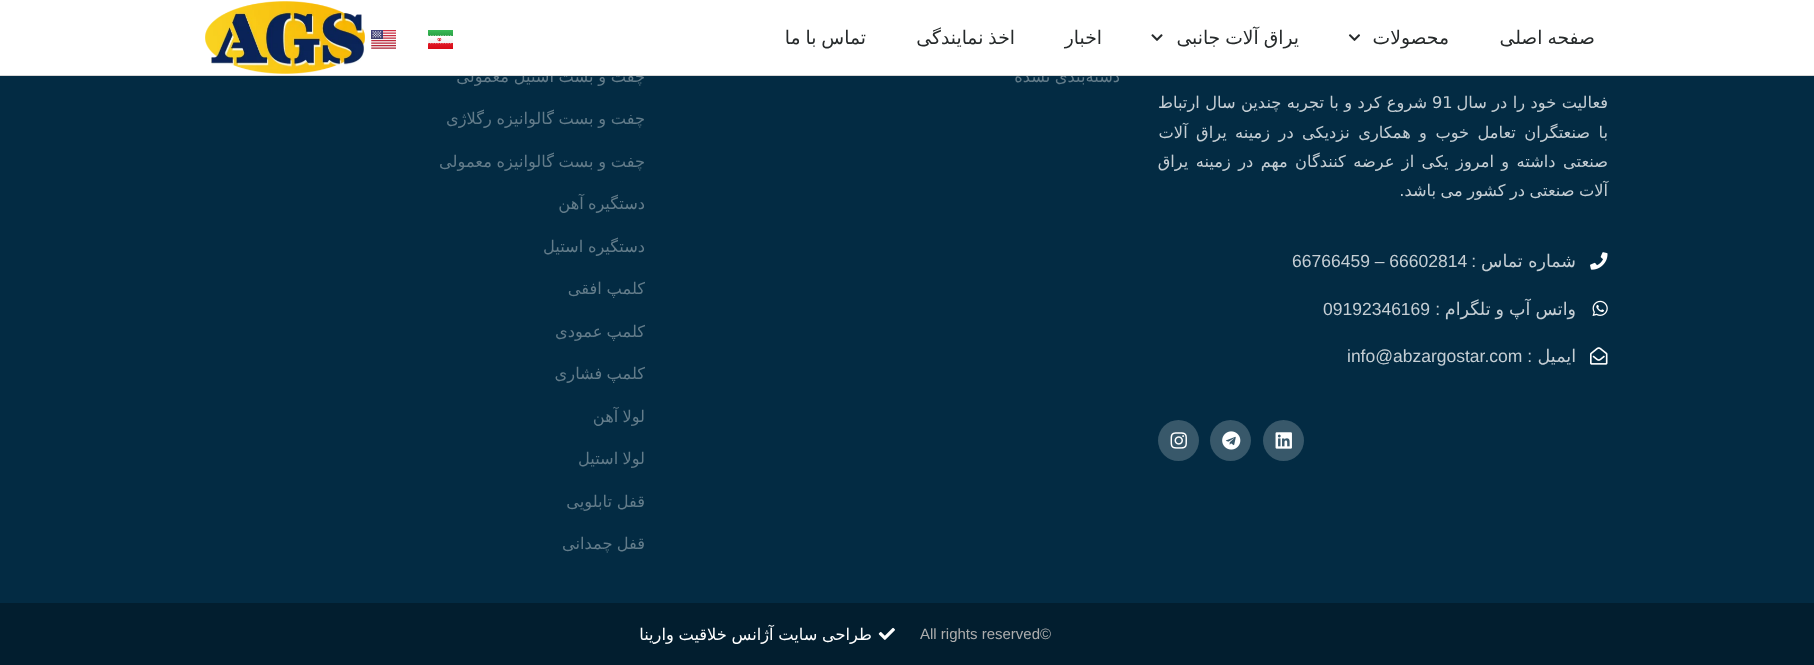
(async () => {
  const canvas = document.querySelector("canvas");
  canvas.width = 1814;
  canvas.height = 665;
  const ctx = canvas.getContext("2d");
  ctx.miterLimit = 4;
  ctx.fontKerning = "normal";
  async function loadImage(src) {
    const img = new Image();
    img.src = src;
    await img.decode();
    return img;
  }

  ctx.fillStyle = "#032b43";
  ctx.fillRect(0, 0, 1814, 665);
  ctx.drawImage(await loadImage("img/6.png"), 1590, 252, 18, 18);
  ctx.drawImage(await loadImage("img/7.png"), 1592, 300, 16, 16);
  ctx.drawImage(await loadImage("img/8.png"), 1590, 347, 18, 18);
  ctx.fillStyle = "#38586a";
  ctx.beginPath();
  ctx.arc(1283.5, 440.5, 20.5, 0, Math.PI * 2);
  ctx.fill();
  ctx.drawImage(await loadImage("img/9.png"), 1275, 432, 17, 17);
  ctx.beginPath();
  ctx.arc(1230.5, 440.5, 20.5, 0, Math.PI * 2);
  ctx.fill();
  ctx.drawImage(await loadImage("img/10.png"), 1222, 431, 19, 19);
  ctx.beginPath();
  ctx.arc(1178.5, 440.5, 20.5, 0, Math.PI * 2);
  ctx.fill();
  ctx.drawImage(await loadImage("img/11.png"), 1170, 432, 17, 17);
  ctx.fillStyle = "#021e2f";
  ctx.fillRect(0, 603, 1814, 62);
  ctx.drawImage(await loadImage("img/12.png"), 878, 627, 17, 13);
  ctx.wordSpacing = "-0.5px";
  ctx.direction = "rtl";
  ctx.font = "16.25px DejaVu Sans";
  ctx.fillStyle = "#637c8a";
  ctx.fillText("دسته‌بندی نشده", 1120, 82);
  ctx.fillText("چفت و بست استیل معمولی", 645, 82);
  ctx.fillStyle = "#ffffff";
  ctx.fillRect(0, 0, 1814, 75);
  ctx.wordSpacing = "-1px";
  ctx.font = "18.75px DejaVu Sans";
  ctx.fillStyle = "#262a2b";
  ctx.fillText("تماس با ما", 866, 44);
  ctx.fillText("اخذ نمایندگی", 1015, 44);
  ctx.wordSpacing = "0px";
  ctx.fillText("اخبار", 1102, 44);
  ctx.drawImage(await loadImage("img/2.png"), 1151, 34, 12, 7);
  ctx.wordSpacing = "-1px";
  ctx.fillText("یراق آلات جانبی", 1299, 44);
  ctx.drawImage(await loadImage("img/1.png"), 1348, 34, 12, 7);
  ctx.wordSpacing = "0px";
  ctx.fillText("محصولات", 1449, 44);
  ctx.wordSpacing = "-1px";
  ctx.fillText("صفحه اصلی", 1595, 44);
  ctx.drawImage(await loadImage("img/5.png"), 205, 1, 160, 73);
  ctx.drawImage(await loadImage("img/4.png"), 371, 30, 25, 19);
  ctx.drawImage(await loadImage("img/3.png"), 428, 30, 25, 19);
  ctx.fillStyle = "#d8d8d8";
  ctx.fillRect(0, 75, 1814, 1);
  ctx.wordSpacing = "-0.5px";
  ctx.font = "16.25px DejaVu Sans";
  ctx.fillStyle = "#637c8a";
  ctx.fillText("چفت و بست گالوانیزه رگلاژی", 645, 124);
  ctx.fillText("چفت و بست گالوانیزه معمولی", 645, 167);
  ctx.wordSpacing = "-1px";
  ctx.fillText("دستگیره آهن", 645, 209);
  ctx.wordSpacing = "-0.5px";
  ctx.fillText("دستگیره استیل", 645, 252);
  ctx.fillText("کلمپ افقی", 645, 294);
  ctx.wordSpacing = "-1px";
  for (const [text, x, y] of [
    ["کلمپ عمودی", 645, 337],
    ["کلمپ فشاری", 645, 379],
    ["لولا آهن", 645, 422],
    ["لولا استیل", 645, 464],
  ]) {
    ctx.fillText(text, x, y);
  }
  ctx.wordSpacing = "-0.5px";
  ctx.fillText("قفل تابلویی", 645, 507);
  ctx.wordSpacing = "-1px";
  ctx.fillText("قفل چمدانی", 645, 549);
  ctx.wordSpacing = "0.25px";
  ctx.fillStyle = "#c5ced4";
  ctx.fillText("فعالیت خود را در سال", 1608, 108);
  ctx.wordSpacing = "0px";
  ctx.direction = "ltr";
  ctx.fillText("91", 1432, 108);
  ctx.wordSpacing = "0.25px";
  ctx.direction = "rtl";
  ctx.fillText("شروع کرد و با تجربه چندین سال ارتباط", 1427, 108);
  ctx.wordSpacing = "3.25px";
  ctx.fillText("با صنعتگران تعامل خوب و همکاری نزدیکی در زمینه یراق آلات", 1608, 138);
  ctx.wordSpacing = "2.25px";
  ctx.fillText("صنعتی داشته و امروز یکی از عرضه کنندگان مهم در زمینه یراق", 1608, 167);
  ctx.wordSpacing = "-0.75px";
  ctx.fillText("آلات صنعتی در کشور می باشد.", 1608, 196);
  ctx.wordSpacing = "0px";
  ctx.font = "17.5px DejaVu Sans";
  ctx.fillText("شماره تماس", 1576, 267);
  ctx.font = "17.5px Liberation Sans";
  ctx.fillText(":", 1476, 267);
  ctx.direction = "ltr";
  ctx.fillText("66766459 – 66602814", 1292, 267);
  ctx.wordSpacing = "-0.5px";
  ctx.direction = "rtl";
  ctx.font = "17.5px DejaVu Sans";
  ctx.fillText("واتس آپ و تلگرام", 1576, 315);
  ctx.wordSpacing = "0px";
  ctx.font = "17.5px Liberation Sans";
  ctx.fillText(":", 1440, 315);
  ctx.direction = "ltr";
  ctx.fillText("09192346169", 1323, 315);
  ctx.direction = "rtl";
  ctx.font = "17.5px DejaVu Sans";
  ctx.fillText("ایمیل", 1576, 362);
  ctx.font = "17.5px Liberation Sans";
  ctx.fillText(":", 1532, 362);
  ctx.direction = "ltr";
  ctx.fillText("info@abzargostar.com", 1347, 362);
  ctx.font = "15px Liberation Sans";
  ctx.fillStyle = "#adadad";
  ctx.fillText("All rights reserved©", 920, 639);
  ctx.wordSpacing = "-0.5px";
  ctx.direction = "rtl";
  ctx.font = "16.25px DejaVu Sans";
  ctx.fillStyle = "#ffffff";
  ctx.fillText("طراحی سایت آژانس خلاقیت وارینا", 872, 640);
})();
